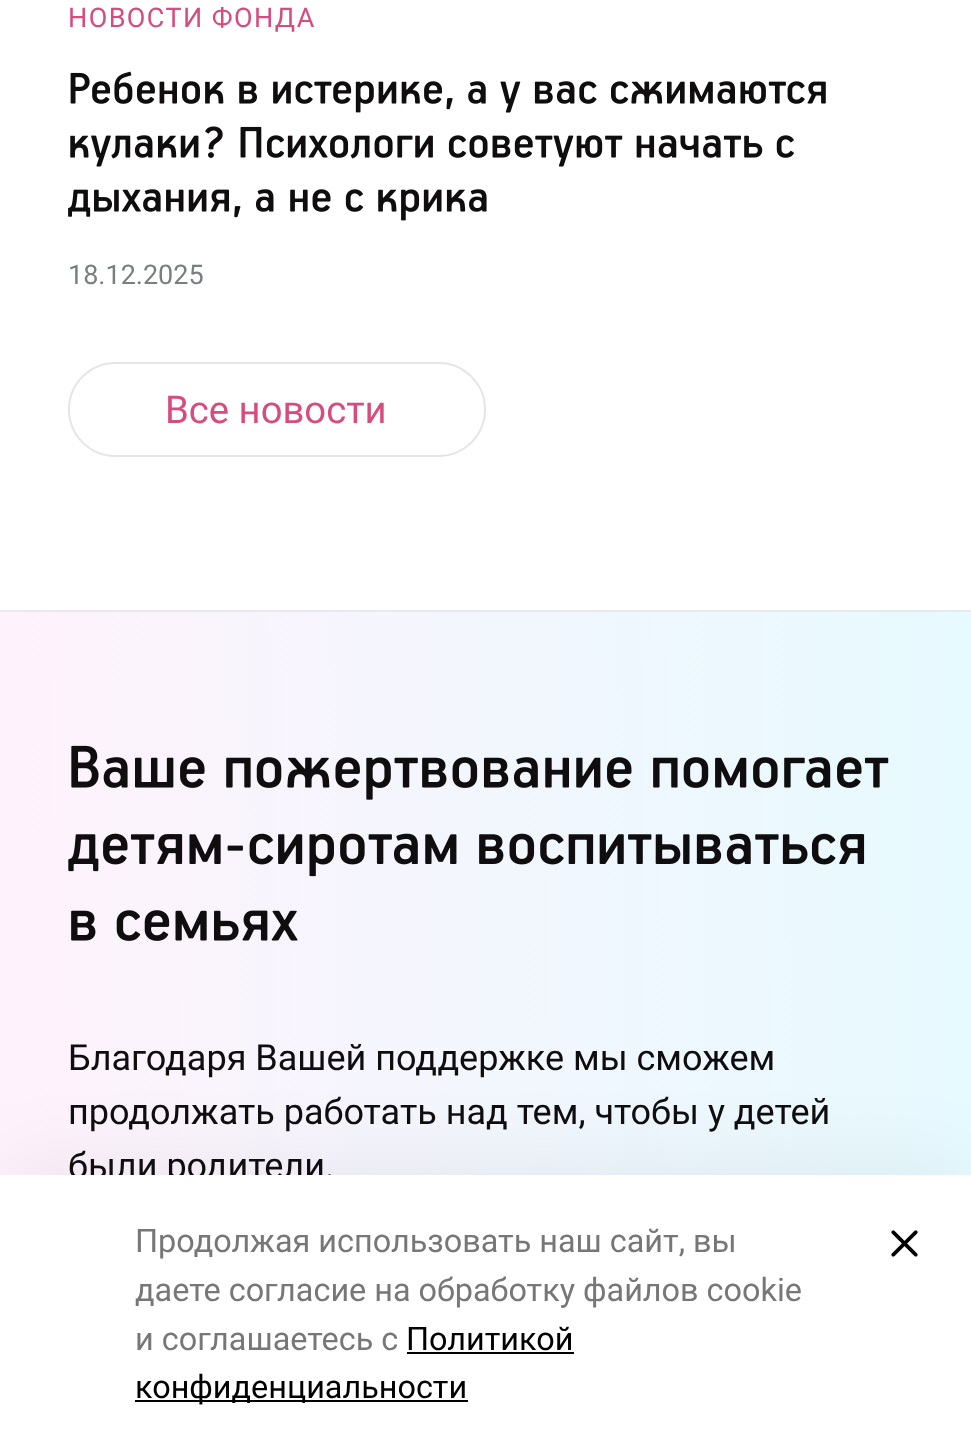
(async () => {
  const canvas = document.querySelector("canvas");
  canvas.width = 971;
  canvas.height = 1456;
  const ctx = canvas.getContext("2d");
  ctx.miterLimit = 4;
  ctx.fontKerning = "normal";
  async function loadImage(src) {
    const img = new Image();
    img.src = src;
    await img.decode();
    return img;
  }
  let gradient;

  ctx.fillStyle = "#ffffff";
  ctx.fillRect(0, 0, 971, 1456);
  ctx.drawImage(await loadImage("img/1.png"), 70, 71, 756, 42);
  ctx.drawImage(await loadImage("img/2.png"), 70, 126, 724, 41);
  ctx.drawImage(await loadImage("img/3.png"), 68, 189, 419, 32);
  ctx.beginPath();
  ctx.roundRect(69, 363, 416, 93, 46.5);
  ctx.strokeStyle = "#e5e5e5";
  ctx.lineWidth = 2;
  ctx.stroke();
  gradient = ctx.createLinearGradient(-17, -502, 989, -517);
  gradient.addColorStop(0.01, "#ece8eb");
  gradient.addColorStop(0.99, "#e6eaec");
  ctx.fillStyle = gradient;
  ctx.fillRect(0, 610, 971, 2);
  gradient = ctx.createLinearGradient(-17, 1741, 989, 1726);
  gradient.addColorStop(0.01, "#fff2fc");
  gradient.addColorStop(0.99, "#e7faff");
  ctx.fillStyle = gradient;
  ctx.fillRect(0, 612, 971, 563);
  ctx.drawImage(await loadImage("img/4.png"), 71, 745, 818, 55);
  ctx.drawImage(await loadImage("img/5.png"), 68, 833, 797, 44);
  ctx.drawImage(await loadImage("img/6.png"), 71, 910, 227, 31);
  ctx.fillStyle = "rgba(0, 0, 0, 0.07)";
  ctx.filter = "blur(45px)";
  ctx.beginPath();
  ctx.rect(0, 1175, 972, 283);
  ctx.fill();
  ctx.filter = "none";
  ctx.letterSpacing = "1.4px";
  ctx.font = "27px Roboto";
  ctx.fillStyle = "#d84b7e";
  ctx.fillText("НОВОСТИ ФОНДА", 68, 27);
  ctx.letterSpacing = "0px";
  ctx.fillStyle = "#797f80";
  ctx.fillText("18.12.2025", 68, 284);
  ctx.font = "38.25px Roboto";
  ctx.fillStyle = "#d84b7e";
  ctx.fillText("Все новости", 165, 423);
  ctx.font = "36px Roboto";
  ctx.fillStyle = "#0f0d0e";
  for (const [text, x, y] of [
    ["Благодаря Вашей поддержке мы сможем", 68, 1070],
    ["продолжать работать над тем, чтобы у детей", 68, 1124],
    ["были родители.", 68, 1178],
  ]) {
    ctx.fillText(text, x, y);
  }
  ctx.fillStyle = "#ffffff";
  ctx.fillRect(0, 1175, 971, 281);
  ctx.font = "32.4px Roboto";
  ctx.fillStyle = "#777777";
  for (const [text, x, y] of [
    ["Продолжая использовать наш сайт, вы", 135, 1252],
    ["даете согласие на обработку файлов cookie", 135, 1301],
    ["и соглашаетесь с", 135, 1350],
  ]) {
    ctx.fillText(text, x, y);
  }
  ctx.fillStyle = "#000000";
  ctx.fillText("Политикой", 406, 1350);
  ctx.fillRect(407, 1352, 167, 2);
  ctx.fillRect(135, 1400, 333, 2);
  ctx.fillText("конфиденциальности", 135, 1398);
  ctx.drawImage(await loadImage("img/7.png"), 891, 1230, 27, 27);
})();
